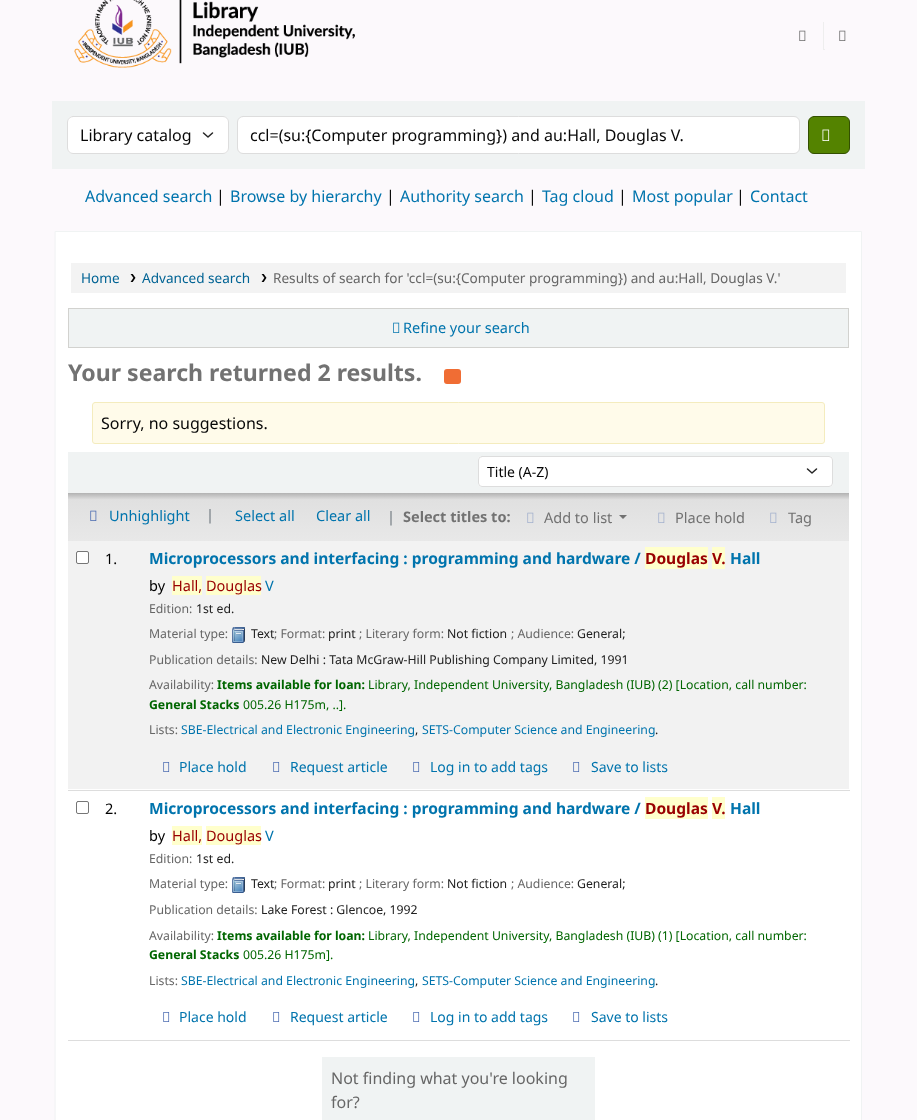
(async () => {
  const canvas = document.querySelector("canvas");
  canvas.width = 917;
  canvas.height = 1120;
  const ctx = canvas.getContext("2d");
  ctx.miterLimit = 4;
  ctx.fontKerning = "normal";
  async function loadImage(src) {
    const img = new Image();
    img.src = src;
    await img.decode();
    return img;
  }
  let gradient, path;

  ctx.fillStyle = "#fcf9fc";
  ctx.fillRect(0, 0, 917, 1120);
  ctx.drawImage(await loadImage("img/1.png"), 74, 0, 281, 68);
  ctx.drawImage(await loadImage("img/2.png"), 799, 30, 7, 11);
  ctx.fillStyle = "#eeeeee";
  ctx.fillRect(823, 49, 2, 1);
  ctx.fillRect(823, 22, 1, 28);
  ctx.drawImage(await loadImage("img/2.png"), 839, 30, 7, 11);
  ctx.fillStyle = "#f0f3f3";
  ctx.fillRect(52, 101, 813, 68);
  ctx.fillStyle = "#ffffff";
  ctx.beginPath();
  ctx.roundRect(67, 116, 162, 38, 6);
  ctx.fill();
  path = new Path2D("M203.5 133L208 137L212.5 133");
  ctx.strokeStyle = "#252525";
  ctx.lineWidth = 1.5;
  ctx.lineCap = "round";
  ctx.lineJoin = "round";
  ctx.stroke(path);
  ctx.beginPath();
  ctx.roundRect(67.5, 116.5, 161, 37, 5.5);
  ctx.strokeStyle = "#dddddd";
  ctx.lineWidth = 1;
  ctx.lineJoin = "miter";
  ctx.stroke();
  ctx.beginPath();
  ctx.roundRect(237.5, 116.5, 562, 37, 5.5);
  ctx.fill();
  ctx.stroke();
  ctx.fillStyle = "#548300";
  ctx.beginPath();
  ctx.roundRect(808.5, 116.5, 41, 37, 5.5);
  ctx.fill();
  ctx.strokeStyle = "#335000";
  ctx.stroke();
  ctx.drawImage(await loadImage("img/3.png"), 822, 129, 8, 12);
  ctx.fillStyle = "#ffffff";
  ctx.beginPath();
  ctx.rect(55.5, 231.5, 806, 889);
  ctx.fill();
  ctx.strokeStyle = "#f0f3f3";
  ctx.stroke();
  ctx.fillStyle = "#f3f3f3";
  ctx.fillRect(71, 263, 775, 30);
  ctx.drawImage(await loadImage("img/4.png"), 130, 274, 6, 8);
  ctx.drawImage(await loadImage("img/4.png"), 261, 274, 6, 8);
  ctx.strokeStyle = "#d2d2cf";
  ctx.strokeRect(68.5, 308.5, 780, 39);
  ctx.fillStyle = "#f0f3f3";
  ctx.fillRect(69, 309, 779, 38);
  ctx.drawImage(await loadImage("img/5.png"), 393, 322, 7, 11);
  ctx.fillStyle = "#f06d34";
  ctx.beginPath();
  ctx.roundRect(444, 369, 17, 15, 3);
  ctx.fill();
  ctx.fillStyle = "#fffbea";
  ctx.beginPath();
  ctx.roundRect(92.5, 402.5, 732, 41, 2.5);
  ctx.fill();
  ctx.strokeStyle = "#f4ecbe";
  ctx.stroke();
  ctx.fillStyle = "#f0f3f3";
  ctx.fillRect(68, 452, 781, 41);
  ctx.fillStyle = "#ffffff";
  ctx.beginPath();
  ctx.roundRect(478, 456, 355, 31, 4);
  ctx.fill();
  path = new Path2D("M807.5 469L812 473L816.5 469");
  ctx.strokeStyle = "#252525";
  ctx.lineWidth = 1.5;
  ctx.lineJoin = "round";
  ctx.stroke(path);
  ctx.beginPath();
  ctx.roundRect(478.5, 456.5, 354, 30, 3.5);
  ctx.strokeStyle = "#dddddd";
  ctx.lineWidth = 1;
  ctx.lineJoin = "miter";
  ctx.stroke();
  gradient = ctx.createLinearGradient(459, 493, 459, 541);
  gradient.addColorStop(0, "#b2b2b2");
  gradient.addColorStop(0.14, "#e0e0e0");
  gradient.addColorStop(1, "#e8e8e8");
  ctx.fillStyle = gradient;
  ctx.fillRect(68, 493, 781, 48);
  ctx.drawImage(await loadImage("img/6.png"), 90, 510, 7, 11);
  ctx.drawImage(await loadImage("img/7.png"), 527, 512, 7, 11);
  ctx.fillStyle = "#717171";
  path = new Path2D("M619 515H627L623 519Z");
  ctx.fill(path);
  ctx.drawImage(await loadImage("img/7.png"), 658, 512, 7, 11);
  ctx.drawImage(await loadImage("img/7.png"), 770, 512, 7, 11);
  ctx.fillStyle = "#f2f2f2";
  ctx.fillRect(68, 541, 781, 248);
  ctx.fillStyle = "#ffffff";
  ctx.beginPath();
  ctx.roundRect(76.5, 551.5, 12, 12, 1.5);
  ctx.fill();
  ctx.strokeStyle = "#767676";
  ctx.stroke();
  for (const [x, y, w, h, color] of [
    [68, 790, 782, 1, "#dddddd"],
    [645, 547, 63, 22, "#ffffcc"],
    [712, 547, 13, 22, "#ffffcc"],
    [172, 576, 30, 19, "#ffffcc"],
    [206, 576, 55, 19, "#ffffcc"],
  ]) {
    ctx.fillStyle = color;
    ctx.fillRect(x, y, w, h);
  }
  ctx.drawImage(await loadImage("img/8.png"), 232, 627, 13, 16);
  ctx.drawImage(await loadImage("img/9.png"), 163, 762, 7, 10);
  ctx.drawImage(await loadImage("img/9.png"), 273, 762, 7, 10);
  ctx.drawImage(await loadImage("img/9.png"), 413, 762, 7, 10);
  ctx.drawImage(await loadImage("img/9.png"), 573, 762, 7, 10);
  ctx.beginPath();
  ctx.roundRect(76.5, 801.5, 12, 12, 1.5);
  ctx.stroke();
  for (const [x, y, w, h, color] of [
    [68, 1040, 782, 1, "#dddddd"],
    [645, 797, 63, 22, "#ffffcc"],
    [712, 797, 13, 22, "#ffffcc"],
    [172, 826, 30, 19, "#ffffcc"],
    [206, 826, 55, 19, "#ffffcc"],
  ]) {
    ctx.fillStyle = color;
    ctx.fillRect(x, y, w, h);
  }
  ctx.drawImage(await loadImage("img/10.png"), 232, 877, 13, 16);
  ctx.drawImage(await loadImage("img/11.png"), 163, 1012, 7, 10);
  ctx.drawImage(await loadImage("img/11.png"), 273, 1012, 7, 10);
  ctx.drawImage(await loadImage("img/11.png"), 413, 1012, 7, 10);
  ctx.drawImage(await loadImage("img/11.png"), 573, 1012, 7, 10);
  ctx.fillStyle = "#f0f3f3";
  ctx.fillRect(322, 1057, 273, 63);
  ctx.font = "16px Noto Sans";
  ctx.fillStyle = "#070707";
  ctx.fillText("Library catalog", 80, 141);
  ctx.fillText("ccl=(su:{Computer programming}) and au:Hall, Douglas V.", 250, 141);
  ctx.fillStyle = "#0074ad";
  ctx.fillText("Advanced search", 85, 202);
  ctx.fillStyle = "#070707";
  ctx.fillText("|", 216, 202);
  ctx.fillStyle = "#0074ad";
  ctx.fillText("Browse by hierarchy", 230, 202);
  ctx.fillStyle = "#070707";
  ctx.fillText("|", 386, 202);
  ctx.fillStyle = "#0074ad";
  ctx.fillText("Authority search", 400, 202);
  ctx.fillStyle = "#070707";
  ctx.fillText("|", 528, 202);
  ctx.fillStyle = "#0074ad";
  ctx.fillText("Tag cloud", 542, 202);
  ctx.fillStyle = "#070707";
  ctx.fillText("|", 618, 202);
  ctx.fillStyle = "#0074ad";
  ctx.fillText("Most popular", 632, 202);
  ctx.fillStyle = "#070707";
  ctx.fillText("|", 736, 202);
  ctx.fillStyle = "#0074ad";
  ctx.fillText("Contact", 750, 202);
  ctx.font = "13.6px Noto Sans";
  ctx.fillStyle = "#006394";
  ctx.fillText("Home", 81, 283);
  ctx.fillText("Advanced search", 142, 283);
  ctx.fillStyle = "#666666";
  ctx.fillText("Results of search for 'ccl=(su:{Computer programming}) and au:Hall, Douglas V.'", 273, 283);
  ctx.font = "14.5px Noto Sans";
  ctx.fillStyle = "#0074ad";
  ctx.fillText("Refine your search", 403, 333);
  ctx.font = "bold 23.1px Noto Sans";
  ctx.fillStyle = "#727272";
  ctx.fillText("Your search returned 2 results.", 68, 381);
  ctx.font = "16px Noto Sans";
  ctx.fillStyle = "#070707";
  ctx.fillText("Sorry, no suggestions.", 101, 429);
  ctx.font = "14px Noto Sans";
  ctx.fillText("Title (A-Z)", 487, 477);
  ctx.font = "14.5px Noto Sans";
  ctx.fillStyle = "#0074ad";
  ctx.fillText("Unhighlight", 109, 521);
  ctx.fillStyle = "#6c757d";
  ctx.fillText("|", 206, 520);
  ctx.fillStyle = "#0074ad";
  ctx.fillText("Select all", 235, 521);
  ctx.fillText("Clear all", 316, 521);
  ctx.fillStyle = "#6c757d";
  ctx.fillText("|", 387, 522);
  ctx.font = "bold 14.5px Noto Sans";
  ctx.fillStyle = "#727272";
  ctx.fillText("Select titles to:", 403, 522);
  ctx.font = "14.5px Noto Sans";
  for (const [text, x, y] of [
    ["Add to list", 544, 523],
    ["Place hold", 675, 523],
    ["Tag", 788, 523],
  ]) {
    ctx.fillText(text, x, y);
  }
  ctx.fillStyle = "#000000";
  ctx.fillText("1.", 105, 564);
  ctx.font = "bold 15.55px Noto Sans";
  ctx.fillStyle = "#0074ad";
  ctx.fillText("Microprocessors and interfacing : programming and hardware /", 149, 564);
  ctx.fillStyle = "#990000";
  ctx.fillText("Douglas", 645, 564);
  ctx.fillText("V.", 712, 564);
  ctx.fillStyle = "#0074ad";
  ctx.fillText("Hall", 730, 564);
  ctx.font = "14.5px Noto Sans";
  ctx.fillStyle = "#000000";
  ctx.fillText("by", 149, 591);
  ctx.fillStyle = "#990000";
  ctx.fillText("Hall,", 172, 591);
  ctx.fillText("Douglas", 206, 591);
  ctx.fillStyle = "#0074ad";
  ctx.fillText("V", 265, 591);
  ctx.font = "12.25px Noto Sans";
  ctx.fillStyle = "#666666";
  ctx.fillText("Edition:", 149, 613);
  ctx.fillStyle = "#202020";
  ctx.fillText("1st ed.", 196, 613);
  ctx.fillStyle = "#666666";
  ctx.fillText("Material type:", 149, 638);
  ctx.fillStyle = "#202020";
  ctx.fillText("Text", 251, 638);
  ctx.fillStyle = "#666666";
  ctx.fillText("; Format:", 274, 638);
  ctx.fillStyle = "#202020";
  ctx.fillText("print", 328, 638);
  ctx.fillStyle = "#666666";
  ctx.fillText("; Literary form:", 359, 638);
  ctx.fillStyle = "#202020";
  ctx.fillText("Not fiction", 447, 638);
  ctx.fillStyle = "#666666";
  ctx.fillText("; Audience:", 511, 638);
  ctx.fillStyle = "#202020";
  ctx.fillText("General;", 577, 638);
  ctx.fillStyle = "#666666";
  ctx.fillText("Publication details:", 149, 664);
  ctx.fillStyle = "#202020";
  ctx.fillText("New Delhi : Tata McGraw-Hill Publishing Company Limited, 1991", 261, 664);
  ctx.fillStyle = "#666666";
  ctx.fillText("Availability:", 149, 689);
  ctx.font = "bold 12.25px Noto Sans";
  ctx.fillStyle = "#006600";
  ctx.fillText("Items available for loan:", 217, 689);
  ctx.font = "12.25px Noto Sans";
  ctx.fillText("Library, Independent University, Bangladesh (IUB) (2) [Location, call number:", 368, 689);
  ctx.font = "bold 12.25px Noto Sans";
  ctx.fillText("General Stacks", 149, 709);
  ctx.font = "12.25px Noto Sans";
  ctx.fillText("005.26 H175m, ..].", 243, 709);
  ctx.fillStyle = "#666666";
  ctx.fillText("Lists:", 149, 734);
  ctx.fillStyle = "#0074ad";
  ctx.fillText("SBE-Electrical and Electronic Engineering", 181, 734);
  ctx.fillStyle = "#202020";
  ctx.fillText(",", 415, 734);
  ctx.fillStyle = "#0074ad";
  ctx.fillText("SETS-Computer Science and Engineering", 422, 734);
  ctx.fillStyle = "#202020";
  ctx.fillText(".", 655, 734);
  ctx.font = "14px Noto Sans";
  ctx.fillStyle = "#0074ad";
  for (const [text, x, y] of [
    ["Place hold", 179, 772],
    ["Request article", 290, 772],
    ["Log in to add tags", 430, 772],
    ["Save to lists", 591, 772],
  ]) {
    ctx.fillText(text, x, y);
  }
  ctx.font = "14.5px Noto Sans";
  ctx.fillStyle = "#000000";
  ctx.fillText("2.", 105, 814);
  ctx.font = "bold 15.55px Noto Sans";
  ctx.fillStyle = "#0074ad";
  ctx.fillText("Microprocessors and interfacing : programming and hardware /", 149, 814);
  ctx.fillStyle = "#990000";
  ctx.fillText("Douglas", 645, 814);
  ctx.fillText("V.", 712, 814);
  ctx.fillStyle = "#0074ad";
  ctx.fillText("Hall", 730, 814);
  ctx.font = "14.5px Noto Sans";
  ctx.fillStyle = "#000000";
  ctx.fillText("by", 149, 841);
  ctx.fillStyle = "#990000";
  ctx.fillText("Hall,", 172, 841);
  ctx.fillText("Douglas", 206, 841);
  ctx.fillStyle = "#0074ad";
  ctx.fillText("V", 265, 841);
  ctx.font = "12.25px Noto Sans";
  ctx.fillStyle = "#666666";
  ctx.fillText("Edition:", 149, 863);
  ctx.fillStyle = "#202020";
  ctx.fillText("1st ed.", 196, 863);
  ctx.fillStyle = "#666666";
  ctx.fillText("Material type:", 149, 888);
  ctx.fillStyle = "#202020";
  ctx.fillText("Text", 251, 888);
  ctx.fillStyle = "#666666";
  ctx.fillText("; Format:", 274, 888);
  ctx.fillStyle = "#202020";
  ctx.fillText("print", 328, 888);
  ctx.fillStyle = "#666666";
  ctx.fillText("; Literary form:", 359, 888);
  ctx.fillStyle = "#202020";
  ctx.fillText("Not fiction", 447, 888);
  ctx.fillStyle = "#666666";
  ctx.fillText("; Audience:", 511, 888);
  ctx.fillStyle = "#202020";
  ctx.fillText("General;", 577, 888);
  ctx.fillStyle = "#666666";
  ctx.fillText("Publication details:", 149, 914);
  ctx.fillStyle = "#202020";
  ctx.fillText("Lake Forest : Glencoe, 1992", 261, 914);
  ctx.fillStyle = "#666666";
  ctx.fillText("Availability:", 149, 940);
  ctx.font = "bold 12.25px Noto Sans";
  ctx.fillStyle = "#006600";
  ctx.fillText("Items available for loan:", 217, 940);
  ctx.font = "12.25px Noto Sans";
  ctx.fillText("Library, Independent University, Bangladesh (IUB) (1) [Location, call number:", 368, 940);
  ctx.font = "bold 12.25px Noto Sans";
  ctx.fillText("General Stacks", 149, 959);
  ctx.font = "12.25px Noto Sans";
  ctx.fillText("005.26 H175m].", 243, 959);
  ctx.fillStyle = "#666666";
  ctx.fillText("Lists:", 149, 985);
  ctx.fillStyle = "#0074ad";
  ctx.fillText("SBE-Electrical and Electronic Engineering", 181, 985);
  ctx.fillStyle = "#202020";
  ctx.fillText(",", 415, 985);
  ctx.fillStyle = "#0074ad";
  ctx.fillText("SETS-Computer Science and Engineering", 422, 985);
  ctx.fillStyle = "#202020";
  ctx.fillText(".", 655, 985);
  ctx.font = "14px Noto Sans";
  ctx.fillStyle = "#0074ad";
  for (const [text, x, y] of [
    ["Place hold", 179, 1022],
    ["Request article", 290, 1022],
    ["Log in to add tags", 430, 1022],
    ["Save to lists", 591, 1022],
  ]) {
    ctx.fillText(text, x, y);
  }
  ctx.font = "16px Noto Sans";
  ctx.fillStyle = "#666666";
  ctx.fillText("Not finding what you're looking", 331, 1084);
  ctx.fillText("for?", 331, 1108);
})();
